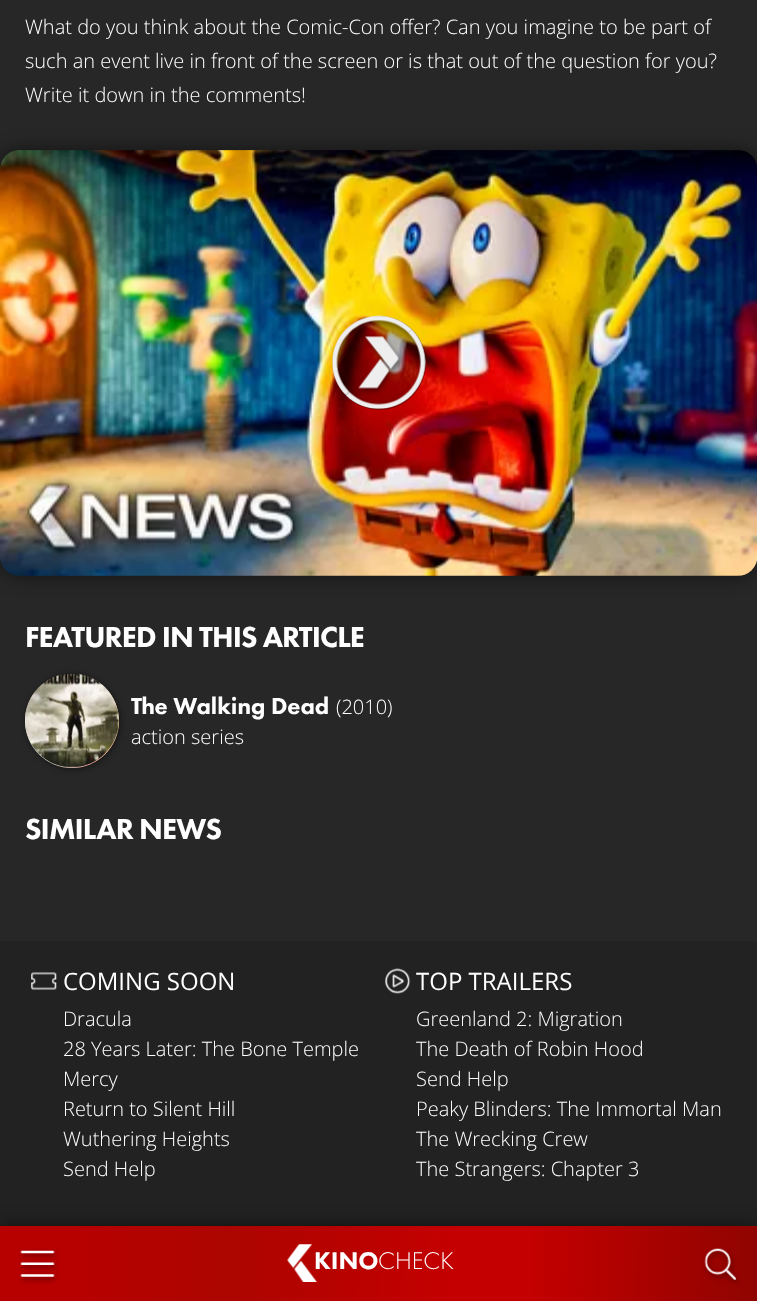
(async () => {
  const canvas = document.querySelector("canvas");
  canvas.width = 757;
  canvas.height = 1301;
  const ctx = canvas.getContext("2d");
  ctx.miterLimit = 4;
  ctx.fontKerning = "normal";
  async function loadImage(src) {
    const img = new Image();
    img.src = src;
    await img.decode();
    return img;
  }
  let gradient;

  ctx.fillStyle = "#282727";
  ctx.fillRect(0, 0, 757, 1301);
  ctx.fillStyle = "rgba(0, 0, 0, 0.5)";
  ctx.filter = "blur(9.5px)";
  ctx.beginPath();
  ctx.roundRect(0, 150, 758, 426, 20);
  ctx.fill();
  ctx.filter = "none";
  ctx.fillStyle = "#222222";
  ctx.beginPath();
  ctx.roundRect(0, 150, 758, 426, 20);
  ctx.fill();
  ctx.drawImage(await loadImage("img/1.png"), 0, 150, 757, 426);
  ctx.fillStyle = "rgba(0, 0, 0, 0.3)";
  ctx.beginPath();
  ctx.roundRect(333, 316, 93, 94, 46.5);
  ctx.fill();
  ctx.drawImage(await loadImage("img/2.png"), 332, 315, 94, 95);
  ctx.fillStyle = "rgba(0, 0, 0, 0.5)";
  ctx.filter = "blur(3px)";
  ctx.beginPath();
  ctx.roundRect(26, 675, 94, 94, 47);
  ctx.fill();
  ctx.filter = "none";
  gradient = ctx.createLinearGradient(19, 759, 125, 682);
  gradient.addColorStop(0, "#abecd6");
  gradient.addColorStop(0.42, "#feada6");
  gradient.addColorStop(1, "#fbed96");
  ctx.fillStyle = gradient;
  ctx.beginPath();
  ctx.arc(72, 721, 47, 0, Math.PI * 2);
  ctx.fill();
  ctx.drawImage(await loadImage("img/3.png"), 25, 674, 94, 94);
  ctx.fillStyle = "#222222";
  ctx.fillRect(0, 941, 757, 285);
  ctx.drawImage(await loadImage("img/4.png"), 31, 972, 26, 18);
  ctx.drawImage(await loadImage("img/5.png"), 385, 968, 26, 26);
  ctx.fillStyle = "rgba(0, 0, 0, 0.5)";
  ctx.filter = "blur(9.5px)";
  ctx.beginPath();
  ctx.rect(0, 1226, 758, 75);
  ctx.fill();
  ctx.filter = "none";
  gradient = ctx.createLinearGradient(-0.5, 1257, 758, 1270);
  gradient.addColorStop(0.1, "#b70100");
  gradient.addColorStop(0.3, "#ac0500");
  gradient.addColorStop(0.6, "#c40000");
  gradient.addColorStop(0.7, "#c40000");
  gradient.addColorStop(1, "#8f0400");
  ctx.fillStyle = gradient;
  ctx.fillRect(0, 1226, 757, 75);
  ctx.drawImage(await loadImage("img/6.png"), 19, 1249, 39, 35);
  ctx.drawImage(await loadImage("img/8.png"), 703, 1247, 37, 38);
  ctx.font = "300 20px Open Sans";
  ctx.fillStyle = "#ffffff";
  for (const [text, x, y] of [
    ["What do you think about the Comic-Con offer? Can you imagine to be part of", 25, 34],
    ["such an event live in front of the screen or is that out of the question for you?", 25, 68],
    ["Write it down in the comments!", 25, 102],
  ]) {
    ctx.fillText(text, x, y);
  }
  ctx.letterSpacing = "-0.9px";
  ctx.font = "30px 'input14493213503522'";
  ctx.fillText("FEATURED IN THIS ARTICLE", 25, 647);
  ctx.letterSpacing = "0px";
  ctx.font = "24px 'input14493213503522'";
  ctx.fillText("The Walking Dead", 131, 714);
  ctx.font = "300 20px Open Sans";
  ctx.fillText("(2010)", 336, 714);
  ctx.fillText("action series", 131, 744);
  ctx.letterSpacing = "-0.9px";
  ctx.font = "30px 'input14493213503522'";
  ctx.fillText("SIMILAR NEWS", 25, 839);
  ctx.letterSpacing = "0px";
  ctx.font = "24px Open Sans";
  ctx.fillText("COMING SOON", 63, 990);
  ctx.font = "300 20px Open Sans";
  for (const [text, x, y] of [
    ["Dracula", 63, 1026],
    ["28 Years Later: The Bone Temple", 63, 1056],
    ["Mercy", 63, 1086],
    ["Return to Silent Hill", 63, 1116],
    ["Wuthering Heights", 63, 1146],
    ["Send Help", 63, 1176],
  ]) {
    ctx.fillText(text, x, y);
  }
  ctx.font = "24px Open Sans";
  ctx.fillText("TOP TRAILERS", 416, 990);
  ctx.font = "300 20px Open Sans";
  for (const [text, x, y] of [
    ["Greenland 2: Migration", 416, 1026],
    ["The Death of Robin Hood", 416, 1056],
    ["Send Help", 416, 1086],
    ["Peaky Blinders: The Immortal Man", 416, 1116],
    ["The Wrecking Crew", 416, 1146],
    ["The Strangers: Chapter 3", 416, 1176],
  ]) {
    ctx.fillText(text, x, y);
  }
  ctx.font = "25px 'input14493213503522'";
  ctx.fillText("KINO", 314, 1269);
  ctx.drawImage(await loadImage("img/7.png"), 287, 1244, 31, 38);
  ctx.font = "25px 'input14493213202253'";
  ctx.fillText("CHECK", 378, 1269);
})();
